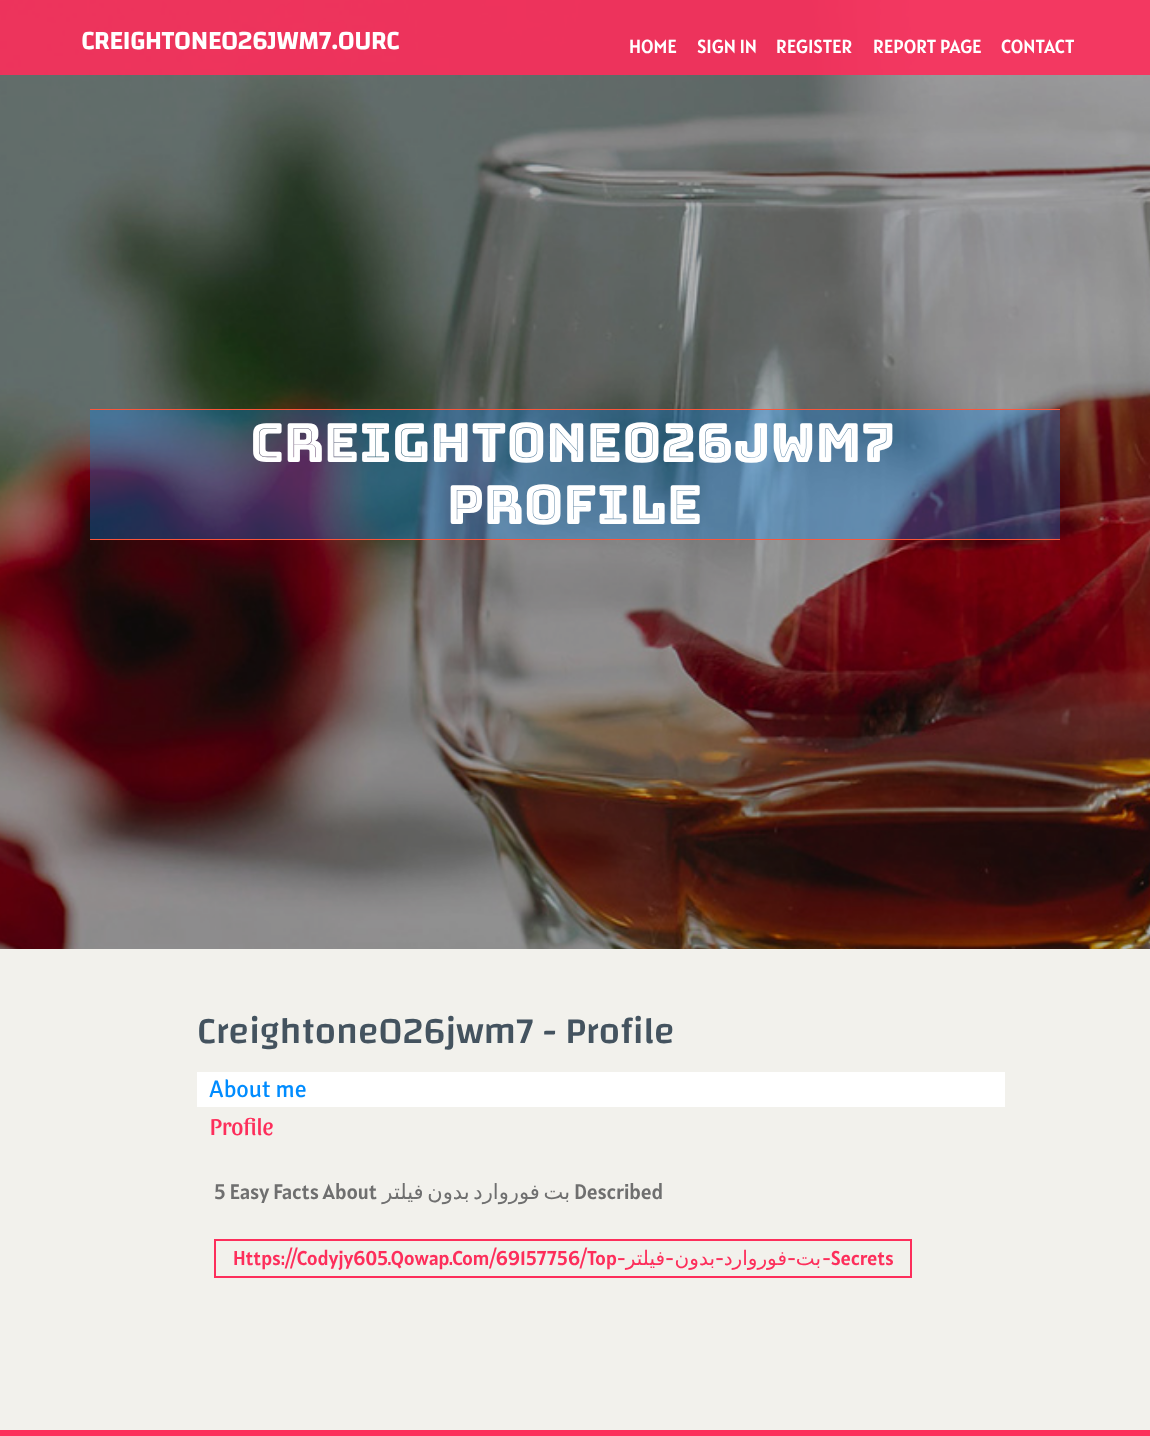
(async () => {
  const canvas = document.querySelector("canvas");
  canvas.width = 1150;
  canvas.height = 1436;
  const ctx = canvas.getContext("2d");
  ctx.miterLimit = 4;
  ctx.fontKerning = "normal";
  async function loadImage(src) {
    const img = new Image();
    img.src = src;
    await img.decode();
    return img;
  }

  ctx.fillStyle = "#f2f1ec";
  ctx.fillRect(0, 0, 1150, 1436);
  ctx.drawImage(await loadImage("img/1.png"), 0, 0, 1150, 949);
  for (const [x, y, w, h, color] of [
    [0, 0, 1150, 75, "rgba(253, 46, 91, 0.9)"],
    [90, 410, 970, 129, "rgba(0, 140, 255, 0.3)"],
    [90, 409, 970, 1, "#fd553a"],
    [90, 539, 970, 1, "#fd553a"],
    [197, 1072, 808, 35, "#ffffff"],
    [214, 1276, 608, 2, "#fd2e5b"],
    [214, 1239, 698, 2, "#fd2e5b"],
    [214, 1239, 2, 39, "#fd2e5b"],
    [910, 1239, 2, 39, "#fd2e5b"],
    [822, 1276, 90, 2, "#fd2e5b"],
    [0, 1430, 1150, 6, "#fd2e5b"],
  ]) {
    ctx.fillStyle = color;
    ctx.fillRect(x, y, w, h);
  }
  ctx.font = "bold 26px Changa";
  ctx.fillStyle = "#ffffff";
  ctx.fillText("CREIGHTONE026JWM7.OURC", 81, 49);
  ctx.font = "19px Alatsi";
  for (const [text, x, y] of [
    ["HOME", 629, 53],
    ["SIGN IN", 697, 53],
    ["REGISTER", 776, 53],
    ["REPORT PAGE", 873, 53],
    ["CONTACT", 1001, 53],
  ]) {
    ctx.fillText(text, x, y);
  }
  ctx.font = "54px Bungee Inline";
  ctx.fillText("creightone026jwm7", 250, 462);
  ctx.fillText("profile", 447, 524);
  ctx.font = "500 37.75px Changa";
  ctx.fillStyle = "#44535f";
  ctx.fillText("Creightone026jwm7 - Profile", 197, 1043);
  ctx.font = "24px Signika";
  ctx.fillStyle = "#008cff";
  ctx.fillText("About me", 209, 1097);
  ctx.font = "24px Sansita";
  ctx.fillStyle = "#fd2e5b";
  ctx.fillText("Profile", 210, 1135);
  ctx.font = "21px Alatsi";
  ctx.fillStyle = "#6f6f6f";
  ctx.fillText("5 Easy Facts About", 214, 1199);
  ctx.wordSpacing = "-3px";
  ctx.direction = "rtl";
  ctx.font = "21px DejaVu Sans";
  ctx.fillText("بت فوروارد بدون فیلتر", 570, 1199);
  ctx.wordSpacing = "0px";
  ctx.direction = "ltr";
  ctx.font = "21px Alatsi";
  ctx.fillText("Described", 574, 1199);
  ctx.font = "20px Alatsi";
  ctx.fillStyle = "#fd2e5b";
  ctx.fillText("Https://Codyjy605.Qowap.Com/69157756/Top-", 233, 1265);
  ctx.direction = "rtl";
  ctx.font = "20px DejaVu Sans";
  ctx.fillText("فیلتر", 665, 1265);
  ctx.font = "20px Alatsi";
  ctx.fillText("-", 674, 1265);
  ctx.font = "20px DejaVu Sans";
  ctx.fillText("بدون", 715, 1265);
  ctx.font = "20px Alatsi";
  ctx.fillText("-", 724, 1265);
  ctx.font = "20px DejaVu Sans";
  ctx.fillText("فوروارد", 787, 1265);
  ctx.font = "20px Alatsi";
  ctx.fillText("-", 796, 1265);
  ctx.font = "20px DejaVu Sans";
  ctx.fillText("بت", 821, 1265);
  ctx.direction = "ltr";
  ctx.font = "20px Alatsi";
  ctx.fillText("-Secrets", 822, 1265);
})();
